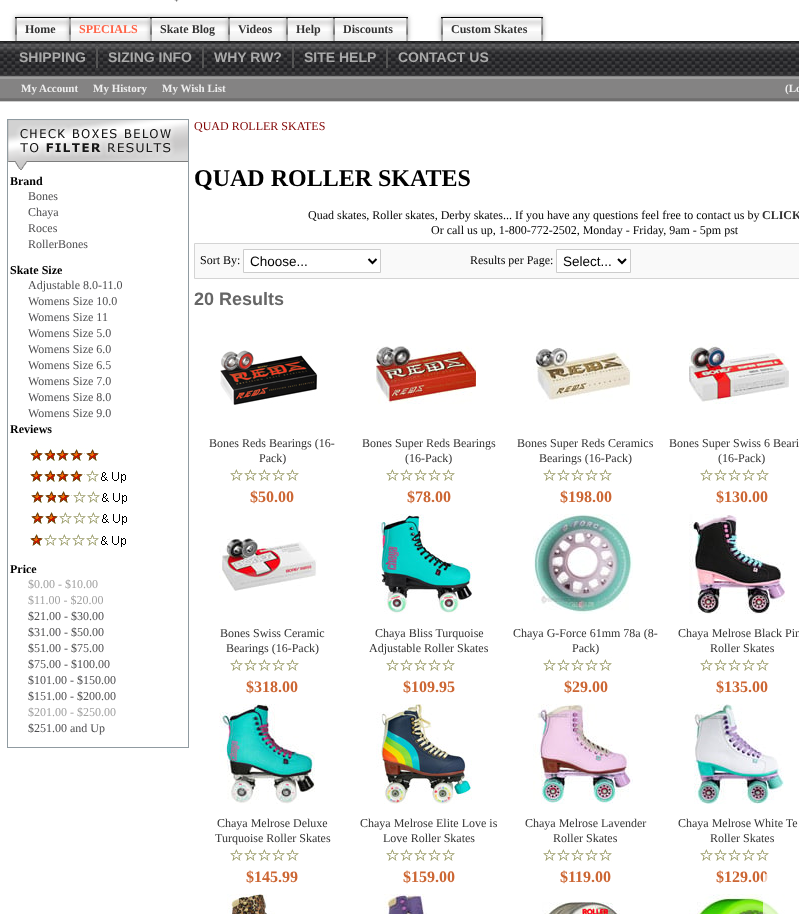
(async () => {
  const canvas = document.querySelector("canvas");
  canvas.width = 799;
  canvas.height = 914;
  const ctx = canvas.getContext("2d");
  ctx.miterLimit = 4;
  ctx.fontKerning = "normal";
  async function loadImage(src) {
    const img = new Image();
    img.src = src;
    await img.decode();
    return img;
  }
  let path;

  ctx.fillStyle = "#ffffff";
  ctx.fillRect(0, 0, 799, 914);
  ctx.drawImage(await loadImage("img/1.png"), 174, 0, 5, 2);
  ctx.fillStyle = "#aaaaaa";
  ctx.filter = "blur(2.5px)";
  ctx.beginPath();
  ctx.rect(15, 17, 56, 24);
  ctx.fill();
  ctx.filter = "none";
  ctx.drawImage(await loadImage("img/2.png"), 15, 17, 5, 24);
  ctx.drawImage(await loadImage("img/3.png"), 20, 17, 49, 24);
  ctx.filter = "blur(2.5px)";
  ctx.beginPath();
  ctx.rect(69, 17, 83, 24);
  ctx.fill();
  ctx.filter = "none";
  ctx.drawImage(await loadImage("img/2.png"), 69, 17, 5, 24);
  ctx.drawImage(await loadImage("img/4.png"), 74, 17, 76, 24);
  ctx.filter = "blur(2.5px)";
  ctx.beginPath();
  ctx.rect(150, 17, 80, 24);
  ctx.fill();
  ctx.filter = "none";
  ctx.drawImage(await loadImage("img/2.png"), 150, 17, 5, 24);
  ctx.drawImage(await loadImage("img/5.png"), 155, 17, 73, 24);
  ctx.filter = "blur(2.5px)";
  ctx.beginPath();
  ctx.rect(228, 17, 60, 24);
  ctx.fill();
  ctx.filter = "none";
  ctx.drawImage(await loadImage("img/2.png"), 228, 17, 5, 24);
  ctx.drawImage(await loadImage("img/6.png"), 233, 17, 53, 24);
  ctx.filter = "blur(2.5px)";
  ctx.beginPath();
  ctx.rect(286, 17, 49, 24);
  ctx.fill();
  ctx.filter = "none";
  ctx.drawImage(await loadImage("img/2.png"), 286, 17, 5, 24);
  ctx.drawImage(await loadImage("img/7.png"), 291, 17, 42, 24);
  ctx.filter = "blur(2.5px)";
  ctx.beginPath();
  ctx.rect(333, 17, 75, 24);
  ctx.fill();
  ctx.filter = "none";
  ctx.drawImage(await loadImage("img/2.png"), 333, 17, 5, 24);
  ctx.drawImage(await loadImage("img/8.png"), 338, 17, 70, 24);
  ctx.filter = "blur(2.5px)";
  ctx.beginPath();
  ctx.rect(441, 17, 102, 24);
  ctx.fill();
  ctx.filter = "none";
  ctx.drawImage(await loadImage("img/2.png"), 441, 17, 5, 24);
  ctx.drawImage(await loadImage("img/9.png"), 446, 17, 97, 24);
  ctx.drawImage(await loadImage("img/10.png"), 0, 41, 799, 35);
  for (const [x, y, w, h, color] of [
    [96, 46, 2, 22, "#555555"],
    [202, 46, 2, 22, "#555555"],
    [292, 46, 2, 22, "#555555"],
    [386, 46, 2, 22, "#555555"],
  ]) {
    ctx.fillStyle = color;
    ctx.fillRect(x, y, w, h);
  }
  ctx.drawImage(await loadImage("img/11.png"), 0, 76, 799, 26);
  for (const [x, y, w, h, color] of [
    [7, 119, 182, 1, "#909ba1"],
    [188, 119, 1, 629, "#909ba1"],
    [7, 747, 182, 1, "#909ba1"],
    [7, 119, 1, 629, "#909ba1"],
  ]) {
    ctx.fillStyle = color;
    ctx.fillRect(x, y, w, h);
  }
  ctx.drawImage(await loadImage("img/12.png"), 8, 120, 180, 50);
  ctx.drawImage(await loadImage("img/13.png"), 30, 447, 69, 14);
  ctx.drawImage(await loadImage("img/14.png"), 30, 468, 96, 15);
  ctx.drawImage(await loadImage("img/15.png"), 31, 489, 96, 15);
  ctx.drawImage(await loadImage("img/16.png"), 31, 510, 96, 15);
  ctx.drawImage(await loadImage("img/17.png"), 30, 532, 96, 15);
  ctx.fillStyle = "#f9f9f9";
  ctx.beginPath();
  ctx.rect(194.5, 243.5, 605, 35);
  ctx.fill();
  ctx.strokeStyle = "#d4d4d4";
  ctx.stroke();
  ctx.fillStyle = "#ffffff";
  ctx.beginPath();
  ctx.rect(243.5, 249.5, 137, 23);
  ctx.fill();
  ctx.strokeStyle = "#cccccc";
  ctx.stroke();
  path = new Path2D("M368.5 259L372.5 263L376.5 259");
  ctx.strokeStyle = "#000000";
  ctx.lineWidth = 2;
  ctx.stroke(path);
  ctx.beginPath();
  ctx.rect(556.5, 249.5, 74, 23);
  ctx.fill();
  ctx.strokeStyle = "#cccccc";
  ctx.lineWidth = 1;
  ctx.stroke();
  path = new Path2D("M618 259L622 263L626 259");
  ctx.strokeStyle = "#000000";
  ctx.lineWidth = 2;
  ctx.stroke(path);
  ctx.drawImage(await loadImage("img/18.png"), 220, 350, 98, 55);
  ctx.drawImage(await loadImage("img/19.png"), 376, 346, 100, 58);
  ctx.drawImage(await loadImage("img/20.png"), 533, 348, 100, 56);
  ctx.drawImage(await loadImage("img/21.png"), 689, 343, 100, 61);
  ctx.drawImage(await loadImage("img/22.png"), 230, 467, 69, 15);
  ctx.drawImage(await loadImage("img/22.png"), 386, 467, 69, 15);
  ctx.drawImage(await loadImage("img/22.png"), 543, 467, 69, 15);
  ctx.drawImage(await loadImage("img/22.png"), 700, 467, 69, 15);
  ctx.drawImage(await loadImage("img/23.png"), 219, 538, 98, 53);
  ctx.drawImage(await loadImage("img/24.png"), 376, 514, 96, 100);
  ctx.drawImage(await loadImage("img/25.png"), 533, 514, 100, 100);
  ctx.drawImage(await loadImage("img/26.png"), 689, 514, 96, 100);
  ctx.drawImage(await loadImage("img/22.png"), 230, 657, 69, 15);
  ctx.drawImage(await loadImage("img/22.png"), 386, 657, 69, 15);
  ctx.drawImage(await loadImage("img/22.png"), 543, 657, 69, 15);
  ctx.drawImage(await loadImage("img/22.png"), 700, 657, 69, 15);
  ctx.drawImage(await loadImage("img/27.png"), 219, 704, 96, 100);
  ctx.drawImage(await loadImage("img/28.png"), 376, 704, 96, 100);
  ctx.drawImage(await loadImage("img/29.png"), 533, 704, 100, 100);
  ctx.drawImage(await loadImage("img/30.png"), 694, 704, 90, 100);
  ctx.drawImage(await loadImage("img/22.png"), 230, 847, 69, 15);
  ctx.drawImage(await loadImage("img/22.png"), 386, 847, 69, 15);
  ctx.drawImage(await loadImage("img/22.png"), 543, 847, 69, 15);
  ctx.drawImage(await loadImage("img/22.png"), 700, 847, 69, 15);
  ctx.drawImage(await loadImage("img/31.png"), 227, 894, 48, 20);
  ctx.drawImage(await loadImage("img/32.png"), 384, 894, 43, 20);
  ctx.drawImage(await loadImage("img/33.png"), 542, 902, 78, 12);
  ctx.drawImage(await loadImage("img/34.png"), 689, 894, 96, 20);
  ctx.font = "bold 12px Liberation Serif";
  ctx.fillStyle = "#333333";
  ctx.fillText("Home", 25, 33);
  ctx.fillStyle = "#ff6347";
  ctx.fillText("SPECIALS", 79, 33);
  ctx.fillStyle = "#333333";
  for (const [text, x, y] of [
    ["Skate Blog", 160, 33],
    ["Videos", 238, 33],
    ["Help", 296, 33],
    ["Discounts", 343, 33],
    ["Custom Skates", 451, 33],
  ]) {
    ctx.fillText(text, x, y);
  }
  ctx.font = "bold 14px Liberation Sans";
  ctx.fillStyle = "#aaaaaa";
  for (const [text, x, y] of [
    ["SHIPPING", 19, 62],
    ["SIZING INFO", 108, 62],
    ["WHY RW?", 214, 62],
    ["SITE HELP", 304, 62],
    ["CONTACT US", 398, 62],
  ]) {
    ctx.fillText(text, x, y);
  }
  ctx.font = "bold 11px Liberation Serif";
  ctx.fillStyle = "#eeeeee";
  for (const [text, x, y] of [
    ["My Account", 21, 92],
    ["My History", 93, 92],
    ["My Wish List", 162, 92],
    ["(Lo", 785, 92],
  ]) {
    ctx.fillText(text, x, y);
  }
  ctx.font = "bold 12px Liberation Serif";
  ctx.fillStyle = "#000000";
  ctx.fillText("Brand", 10, 185);
  ctx.font = "12px Liberation Serif";
  ctx.fillStyle = "#4e4e50";
  for (const [text, x, y] of [
    ["Bones", 28, 200],
    ["Chaya", 28, 216],
    ["Roces", 28, 232],
    ["RollerBones", 28, 248],
  ]) {
    ctx.fillText(text, x, y);
  }
  ctx.font = "bold 12px Liberation Serif";
  ctx.fillStyle = "#000000";
  ctx.fillText("Skate Size", 10, 274);
  ctx.font = "12px Liberation Serif";
  ctx.fillStyle = "#4e4e50";
  for (const [text, x, y] of [
    ["Adjustable 8.0-11.0", 28, 289],
    ["Womens Size 10.0", 28, 305],
    ["Womens Size 11", 28, 321],
    ["Womens Size 5.0", 28, 337],
    ["Womens Size 6.0", 28, 353],
    ["Womens Size 6.5", 28, 369],
    ["Womens Size 7.0", 28, 385],
    ["Womens Size 8.0", 28, 401],
    ["Womens Size 9.0", 28, 417],
  ]) {
    ctx.fillText(text, x, y);
  }
  ctx.font = "bold 12px Liberation Serif";
  ctx.fillStyle = "#000000";
  ctx.fillText("Reviews", 10, 433);
  ctx.fillText("Price", 10, 573);
  ctx.font = "12px Liberation Serif";
  ctx.fillStyle = "#a1a1a1";
  ctx.fillText("$0.00 - $10.00", 28, 588);
  ctx.fillText("$11.00 - $20.00", 28, 604);
  ctx.fillStyle = "#4e4e50";
  for (const [text, x, y] of [
    ["$21.00 - $30.00", 28, 620],
    ["$31.00 - $50.00", 28, 636],
    ["$51.00 - $75.00", 28, 652],
    ["$75.00 - $100.00", 28, 668],
    ["$101.00 - $150.00", 28, 684],
    ["$151.00 - $200.00", 28, 700],
  ]) {
    ctx.fillText(text, x, y);
  }
  ctx.fillStyle = "#a1a1a1";
  ctx.fillText("$201.00 - $250.00", 28, 716);
  ctx.fillStyle = "#4e4e50";
  ctx.fillText("$251.00 and Up", 28, 732);
  ctx.fillStyle = "#800000";
  ctx.fillText("QUAD ROLLER SKATES", 194, 130);
  ctx.font = "bold 24px Liberation Serif";
  ctx.fillStyle = "#000000";
  ctx.fillText("QUAD ROLLER SKATES", 194, 186);
  ctx.font = "12px Liberation Serif";
  ctx.fillText("Quad skates, Roller skates, Derby skates... If you have any questions feel free to contact us by", 308, 219);
  ctx.font = "bold 12px Liberation Serif";
  ctx.fillStyle = "#333333";
  ctx.fillText("CLICK", 762, 219);
  ctx.font = "12px Liberation Serif";
  ctx.fillStyle = "#000000";
  ctx.fillText("Or call us up, 1-800-772-2502, Monday - Friday, 9am - 5pm pst", 431, 234);
  ctx.fillText("Sort By:", 200, 264);
  ctx.font = "13.5px Liberation Sans";
  ctx.fillText("Choose...", 250, 266);
  ctx.font = "12px Liberation Serif";
  ctx.fillText("Results per Page:", 470, 264);
  ctx.font = "13.5px Liberation Sans";
  ctx.fillText("Select...", 563, 266);
  ctx.font = "bold 18px Liberation Sans";
  ctx.fillStyle = "#666666";
  ctx.fillText("20 Results", 194, 305);
  ctx.font = "12px Liberation Serif";
  ctx.fillStyle = "#333333";
  ctx.fillText("Bones Reds Bearings (16-", 209, 447);
  ctx.fillText("Pack)", 259, 462);
  ctx.font = "bold 16px Liberation Serif";
  ctx.fillStyle = "#cc6633";
  ctx.fillText("$50.00", 250, 502);
  ctx.font = "12px Liberation Serif";
  ctx.fillStyle = "#333333";
  ctx.fillText("Bones Super Reds Bearings", 362, 447);
  ctx.fillText("(16-Pack)", 405, 462);
  ctx.font = "bold 16px Liberation Serif";
  ctx.fillStyle = "#cc6633";
  ctx.fillText("$78.00", 407, 502);
  ctx.font = "12px Liberation Serif";
  ctx.fillStyle = "#333333";
  ctx.fillText("Bones Super Reds Ceramics", 517, 447);
  ctx.fillText("Bearings (16-Pack)", 539, 462);
  ctx.font = "bold 16px Liberation Serif";
  ctx.fillStyle = "#cc6633";
  ctx.fillText("$198.00", 560, 502);
  ctx.font = "12px Liberation Serif";
  ctx.fillStyle = "#333333";
  ctx.fillText("Bones Super Swiss 6 Beari", 669, 447);
  ctx.fillText("(16-Pack)", 718, 462);
  ctx.font = "bold 16px Liberation Serif";
  ctx.fillStyle = "#cc6633";
  ctx.fillText("$130.00", 716, 502);
  ctx.font = "12px Liberation Serif";
  ctx.fillStyle = "#333333";
  ctx.fillText("Bones Swiss Ceramic", 220, 637);
  ctx.fillText("Bearings (16-Pack)", 226, 652);
  ctx.font = "bold 16px Liberation Serif";
  ctx.fillStyle = "#cc6633";
  ctx.fillText("$318.00", 246, 692);
  ctx.font = "12px Liberation Serif";
  ctx.fillStyle = "#333333";
  ctx.fillText("Chaya Bliss Turquoise", 375, 637);
  ctx.fillText("Adjustable Roller Skates", 369, 652);
  ctx.font = "bold 16px Liberation Serif";
  ctx.fillStyle = "#cc6633";
  ctx.fillText("$109.95", 403, 692);
  ctx.font = "12px Liberation Serif";
  ctx.fillStyle = "#333333";
  ctx.fillText("Chaya G-Force 61mm 78a (8-", 513, 637);
  ctx.fillText("Pack)", 572, 652);
  ctx.font = "bold 16px Liberation Serif";
  ctx.fillStyle = "#cc6633";
  ctx.fillText("$29.00", 564, 692);
  ctx.font = "12px Liberation Serif";
  ctx.fillStyle = "#333333";
  ctx.fillText("Chaya Melrose Black Pin", 678, 637);
  ctx.fillText("Roller Skates", 710, 652);
  ctx.font = "bold 16px Liberation Serif";
  ctx.fillStyle = "#cc6633";
  ctx.fillText("$135.00", 716, 692);
  ctx.font = "12px Liberation Serif";
  ctx.fillStyle = "#333333";
  ctx.fillText("Chaya Melrose Deluxe", 217, 827);
  ctx.fillText("Turquoise Roller Skates", 215, 842);
  ctx.font = "bold 16px Liberation Serif";
  ctx.fillStyle = "#cc6633";
  ctx.fillText("$145.99", 246, 882);
  ctx.font = "12px Liberation Serif";
  ctx.fillStyle = "#333333";
  ctx.fillText("Chaya Melrose Elite Love is", 360, 827);
  ctx.fillText("Love Roller Skates", 383, 842);
  ctx.font = "bold 16px Liberation Serif";
  ctx.fillStyle = "#cc6633";
  ctx.fillText("$159.00", 403, 882);
  ctx.font = "12px Liberation Serif";
  ctx.fillStyle = "#333333";
  ctx.fillText("Chaya Melrose Lavender", 525, 827);
  ctx.fillText("Roller Skates", 553, 842);
  ctx.font = "bold 16px Liberation Serif";
  ctx.fillStyle = "#cc6633";
  ctx.fillText("$119.00", 560, 882);
  ctx.font = "12px Liberation Serif";
  ctx.fillStyle = "#333333";
  ctx.fillText("Chaya Melrose White Te", 678, 827);
  ctx.fillText("Roller Skates", 710, 842);
  ctx.font = "bold 16px Liberation Serif";
  ctx.fillStyle = "#cc6633";
  ctx.fillText("$129.00", 716, 882);
  ctx.fillStyle = "rgba(255, 255, 255, 0.7)";
  ctx.beginPath();
  ctx.roundRect(763, 874, 36, 40, [3, 0, 0, 0]);
  ctx.fill();
})();
